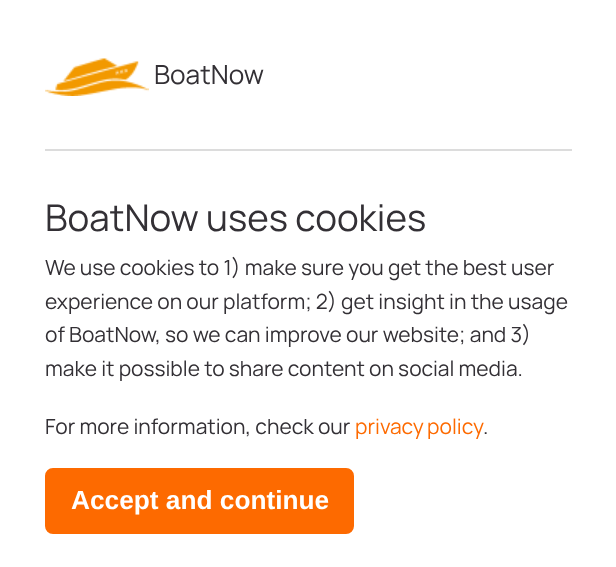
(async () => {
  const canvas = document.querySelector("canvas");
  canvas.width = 616;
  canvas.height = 567;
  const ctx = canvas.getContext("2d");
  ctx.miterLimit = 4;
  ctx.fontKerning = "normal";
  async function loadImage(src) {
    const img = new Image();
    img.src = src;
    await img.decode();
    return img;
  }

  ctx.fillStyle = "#ffffff";
  ctx.fillRect(0, 0, 616, 567);
  ctx.drawImage(await loadImage("img/1.png"), 45, 58, 104, 38);
  ctx.fillStyle = "#dcdcdc";
  ctx.fillRect(45, 149, 527, 2);
  ctx.fillStyle = "#fd6a00";
  ctx.beginPath();
  ctx.roundRect(46, 469, 307, 64, 7);
  ctx.fill();
  ctx.strokeStyle = "#fd6a00";
  ctx.lineWidth = 2;
  ctx.stroke();
  ctx.font = "26.25px Manrope";
  ctx.fillStyle = "#333035";
  ctx.fillText("BoatNow", 154, 84);
  ctx.font = "36.75px Manrope";
  ctx.fillText("BoatNow uses cookies", 45, 231);
  ctx.font = "21px Manrope";
  for (const [text, x, y] of [
    ["We use cookies to 1) make sure you get the best user", 45, 275],
    ["experience on our platform; 2) get insight in the usage", 45, 309],
    ["of BoatNow, so we can improve our website; and 3)", 45, 342],
    ["make it possible to share content on social media.", 45, 376],
    ["For more information, check our", 45, 434],
  ]) {
    ctx.fillText(text, x, y);
  }
  ctx.wordSpacing = "-1px";
  ctx.fillStyle = "#fd6a00";
  ctx.fillText("privacy policy", 355, 434);
  ctx.wordSpacing = "0px";
  ctx.fillStyle = "#333035";
  ctx.fillText(".", 483, 434);
  ctx.font = "bold 26.25px Liberation Sans";
  ctx.fillStyle = "#ffffff";
  ctx.fillText("Accept and continue", 71, 509);
})();
